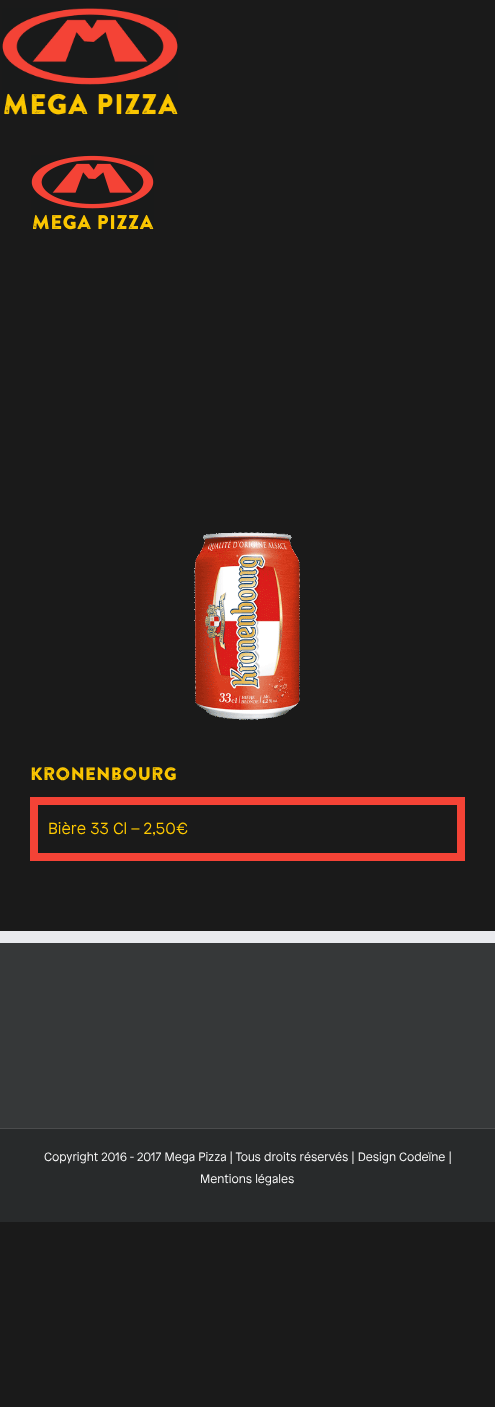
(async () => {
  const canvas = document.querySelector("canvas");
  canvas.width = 495;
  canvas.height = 1407;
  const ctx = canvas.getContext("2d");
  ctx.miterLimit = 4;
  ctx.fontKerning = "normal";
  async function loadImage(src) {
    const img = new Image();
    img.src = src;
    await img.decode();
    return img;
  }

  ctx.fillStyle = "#1a1a1a";
  ctx.fillRect(0, 0, 495, 1407);
  ctx.drawImage(await loadImage("img/1.png"), 2, 8, 176, 107);
  ctx.drawImage(await loadImage("img/2.png"), 31, 155, 123, 75);
  ctx.drawImage(await loadImage("img/3.png"), 194, 532, 106, 188);
  ctx.strokeStyle = "#f44336";
  ctx.lineWidth = 8;
  ctx.strokeRect(34, 801, 427, 56);
  for (const [x, y, w, h, color] of [
    [0, 943, 495, 185, "#363839"],
    [0, 931, 495, 12, "#e9eaee"],
    [0, 1129, 495, 93, "#282a2b"],
    [0, 1128, 495, 1, "#4b4c4d"],
  ]) {
    ctx.fillStyle = color;
    ctx.fillRect(x, y, w, h);
  }
  ctx.font = "200 18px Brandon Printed";
  ctx.fillStyle = "#fec901";
  ctx.fillText("Kronenbourg", 30, 780);
  ctx.font = "300 16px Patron";
  ctx.fillText("Bière 33 Cl – 2,50€", 48, 834);
  ctx.font = "300 12px Patron";
  ctx.fillStyle = "#ffffff";
  ctx.fillText("Copyright 2016 - 2017 Mega Pizza | Tous droits réservés | Design Codeïne |", 44, 1161);
  ctx.fillText("Mentions légales", 200, 1183);
})();
